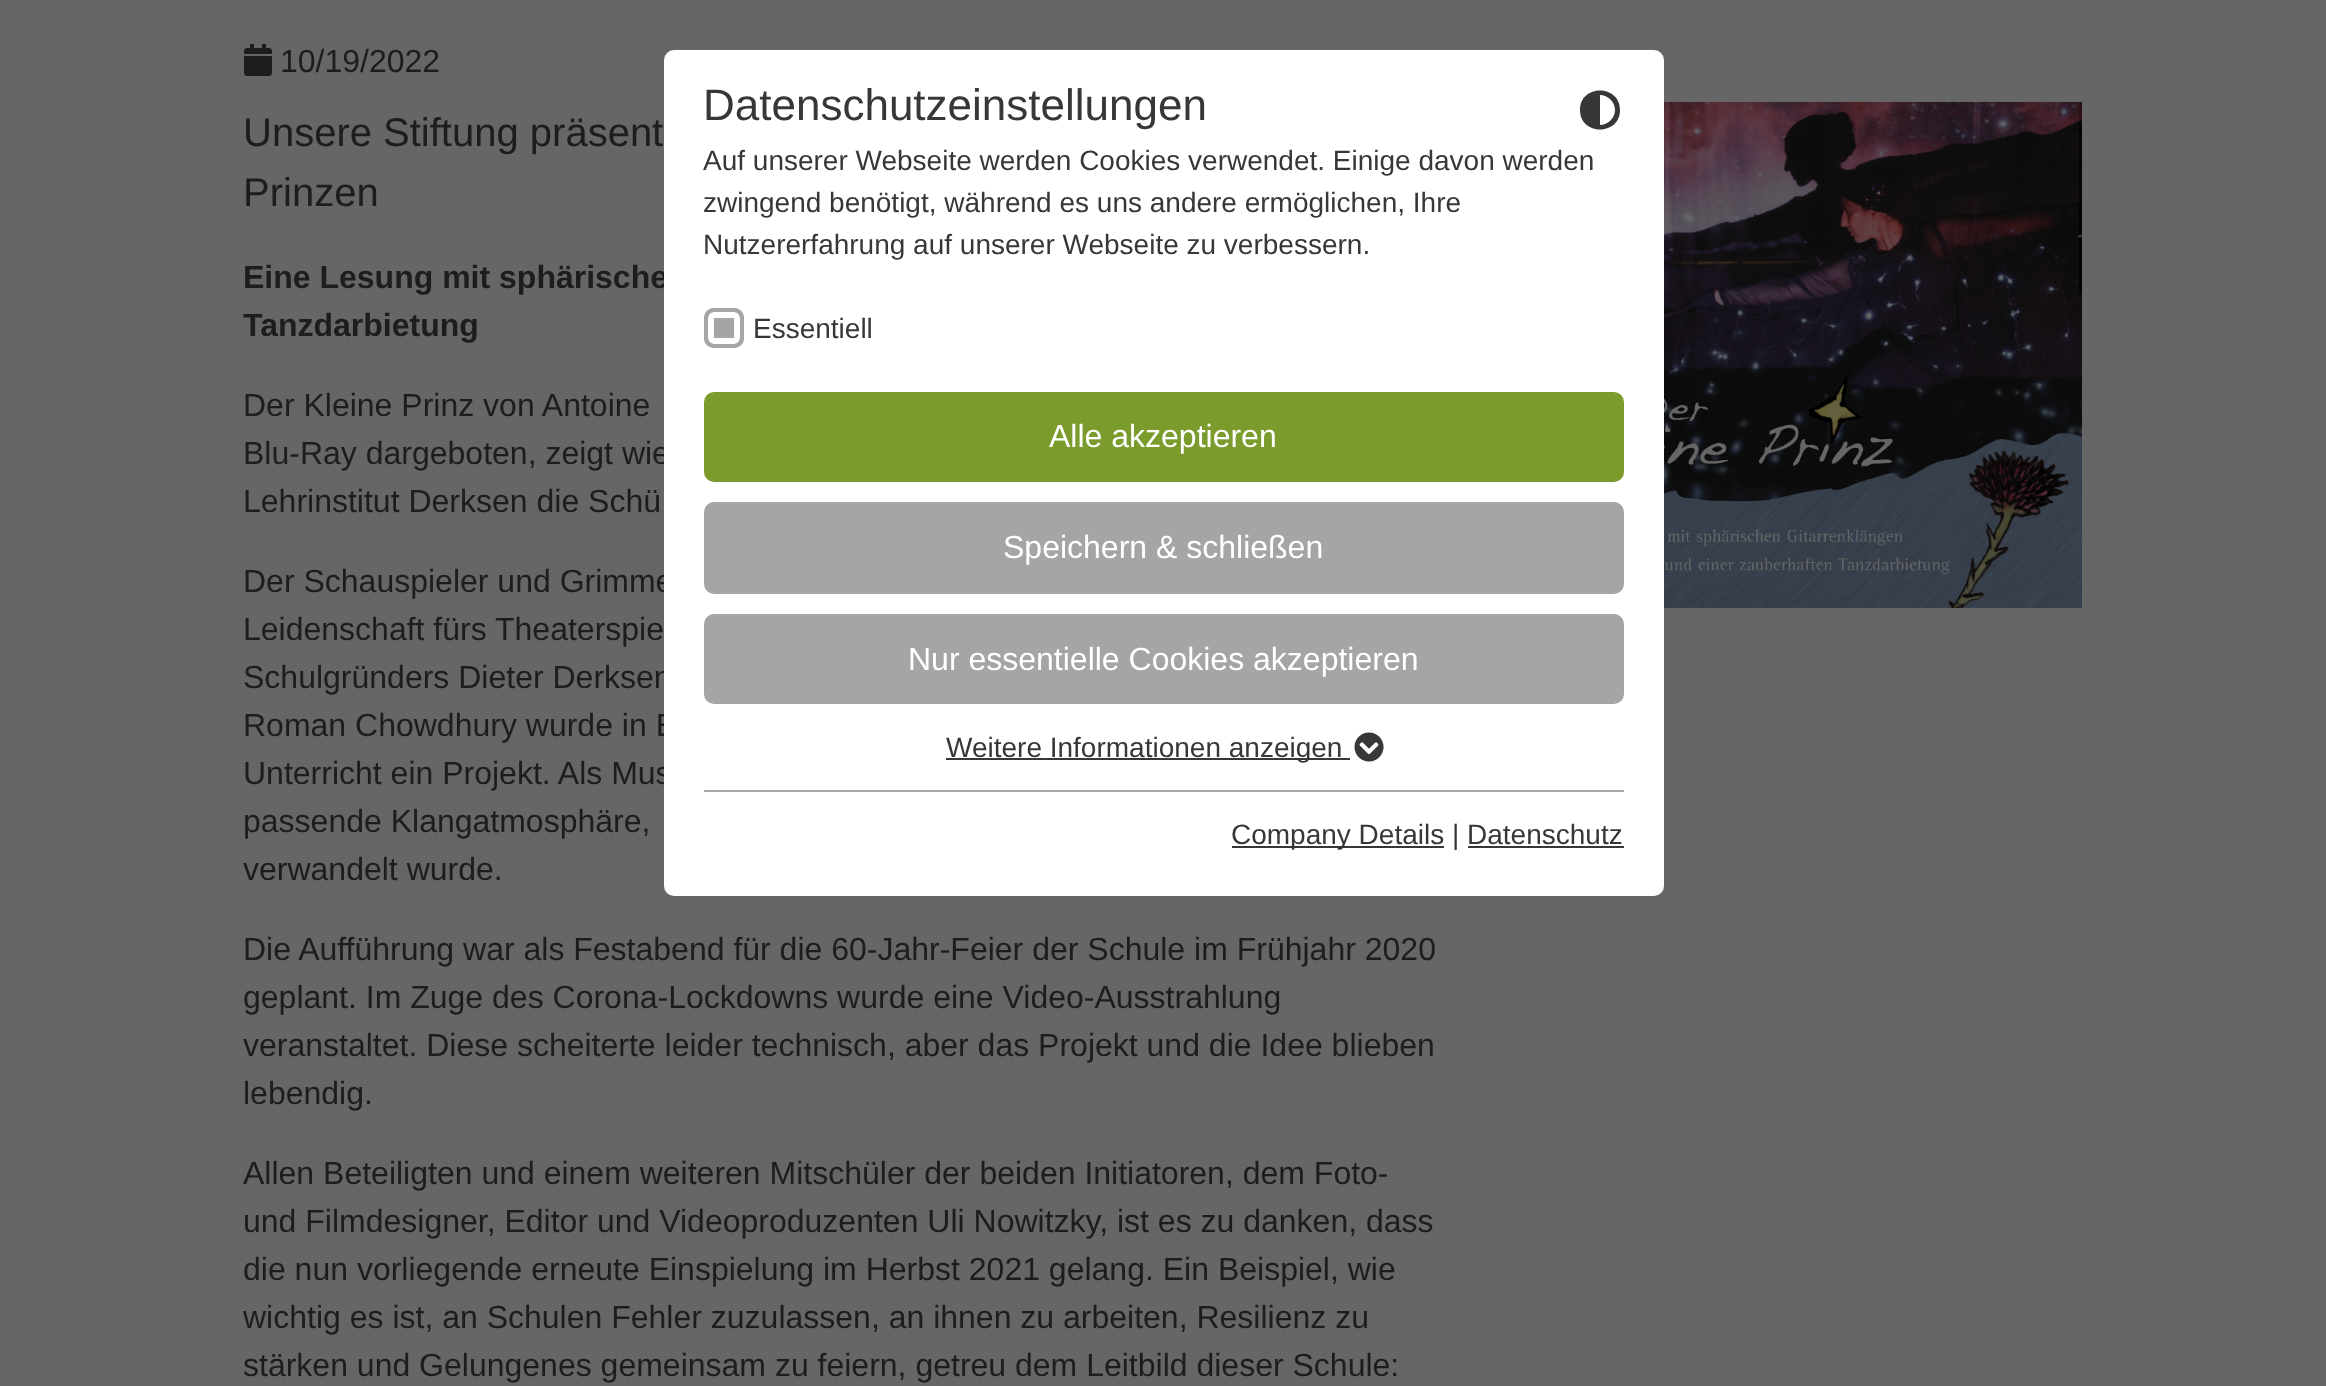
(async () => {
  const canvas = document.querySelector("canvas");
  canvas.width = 2326;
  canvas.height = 1386;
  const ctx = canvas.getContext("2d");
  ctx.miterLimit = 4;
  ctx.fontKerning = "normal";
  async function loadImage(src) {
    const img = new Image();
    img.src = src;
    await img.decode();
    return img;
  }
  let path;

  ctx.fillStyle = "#666666";
  ctx.fillRect(0, 0, 2326, 1386);
  ctx.drawImage(await loadImage("img/1.png"), 244, 44, 28, 32);
  ctx.drawImage(await loadImage("img/2.png"), 1664, 102, 418, 506);
  ctx.font = "32px Liberation Sans";
  ctx.fillStyle = "#1d1d1d";
  ctx.fillText("10/19/2022", 280, 72);
  ctx.font = "40px Liberation Sans";
  ctx.fillText("Unsere Stiftung präsent", 243, 146);
  ctx.fillText("Prinzen", 243, 206);
  ctx.font = "bold 32px Liberation Sans";
  ctx.fillText("Eine Lesung mit sphärische", 243, 288);
  ctx.fillText("Tanzdarbietung", 243, 336);
  ctx.font = "32px Liberation Sans";
  for (const [text, x, y] of [
    ["Der Kleine Prinz von Antoine", 243, 416],
    ["Blu-Ray dargeboten, zeigt wie", 243, 464],
    ["Lehrinstitut Derksen die Schü", 243, 512],
    ["Der Schauspieler und Grimme", 243, 592],
    ["Leidenschaft fürs Theaterspie", 243, 640],
    ["Schulgründers Dieter Derksen", 243, 688],
    ["Roman Chowdhury wurde in E", 243, 736],
    ["Unterricht ein Projekt. Als Mus", 243, 784],
    ["passende Klangatmosphäre,", 243, 832],
    ["verwandelt wurde.", 243, 880],
    ["Die Aufführung war als Festabend für die 60-Jahr-Feier der Schule im Frühjahr 2020", 243, 960],
    ["geplant. Im Zuge des Corona-Lockdowns wurde eine Video-Ausstrahlung", 243, 1008],
    ["veranstaltet. Diese scheiterte leider technisch, aber das Projekt und die Idee blieben", 243, 1056],
    ["lebendig.", 243, 1104],
    ["Allen Beteiligten und einem weiteren Mitschüler der beiden Initiatoren, dem Foto-", 243, 1184],
    ["und Filmdesigner, Editor und Videoproduzenten Uli Nowitzky, ist es zu danken, dass", 243, 1232],
    ["die nun vorliegende erneute Einspielung im Herbst 2021 gelang. Ein Beispiel, wie", 243, 1280],
    ["wichtig es ist, an Schulen Fehler zuzulassen, an ihnen zu arbeiten, Resilienz zu", 243, 1328],
    ["stärken und Gelungenes gemeinsam zu feiern, getreu dem Leitbild dieser Schule:", 243, 1376],
  ]) {
    ctx.fillText(text, x, y);
  }
  ctx.fillStyle = "#ffffff";
  ctx.beginPath();
  ctx.roundRect(664, 50, 1000, 846, 10);
  ctx.fill();
  ctx.font = "44px Liberation Sans";
  ctx.fillStyle = "#373737";
  ctx.fillText("Datenschutzeinstellungen", 703, 120);
  path = new Path2D("M1615 110C1615 102 1608 95 1600 95V125C1608 125 1615 118 1615 110ZM1580 110C1580 84 1620 84 1620 110C1620 136 1580 136 1580 110Z");
  ctx.fill(path);
  ctx.font = "28px Liberation Sans";
  for (const [text, x, y] of [
    ["Auf unserer Webseite werden Cookies verwendet. Einige davon werden", 703, 170],
    ["zwingend benötigt, während es uns andere ermöglichen, Ihre", 703, 212],
    ["Nutzererfahrung auf unserer Webseite zu verbessern.", 703, 254],
  ]) {
    ctx.fillText(text, x, y);
  }
  ctx.fillStyle = "#a5a5a5";
  ctx.beginPath();
  ctx.roundRect(704, 308, 40, 40, 10);
  ctx.fill();
  ctx.beginPath();
  ctx.roundRect(711, 315, 26, 26, 3);
  ctx.strokeStyle = "#ffffff";
  ctx.lineWidth = 6;
  ctx.stroke();
  ctx.beginPath();
  ctx.roundRect(706, 310, 36, 36, 8);
  ctx.strokeStyle = "#a5a5a5";
  ctx.lineWidth = 4;
  ctx.stroke();
  ctx.fillStyle = "#373737";
  ctx.fillText("Essentiell", 753, 338);
  ctx.fillStyle = "#7b9b2c";
  ctx.beginPath();
  ctx.roundRect(704, 392, 920, 90, 10);
  ctx.fill();
  ctx.font = "32px Liberation Sans";
  ctx.fillStyle = "#ffffff";
  ctx.fillText("Alle akzeptieren", 1049, 447);
  ctx.fillStyle = "#a5a5a5";
  ctx.beginPath();
  ctx.roundRect(704, 502, 920, 92, 10);
  ctx.fill();
  ctx.fillStyle = "#ffffff";
  ctx.fillText("Speichern & schließen", 1003, 558);
  ctx.fillStyle = "#a5a5a5";
  ctx.beginPath();
  ctx.roundRect(704, 614, 920, 90, 10);
  ctx.fill();
  ctx.fillStyle = "#ffffff";
  ctx.fillText("Nur essentielle Cookies akzeptieren", 908, 670);
  ctx.fillStyle = "#373737";
  ctx.fillRect(946, 758, 404, 2);
  ctx.font = "28px Liberation Sans";
  ctx.fillText("Weitere Informationen anzeigen", 946, 757);
  ctx.drawImage(await loadImage("img/3.png"), 1354, 732, 30, 30);
  ctx.fillStyle = "#a5a5a5";
  ctx.fillRect(704, 790, 920, 2);
  ctx.fillStyle = "#373737";
  ctx.fillRect(1232, 846, 212, 2);
  ctx.fillText("Company Details | Datenschutz", 1231, 844);
  ctx.fillRect(1468, 846, 156, 2);
})();
